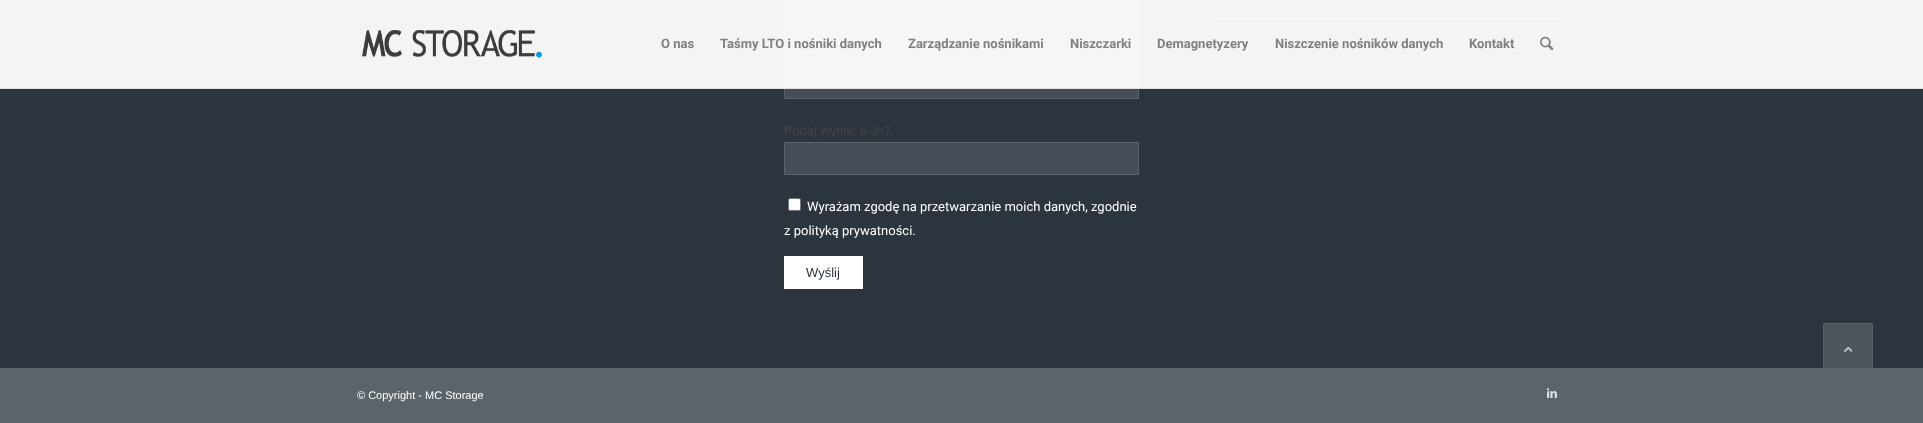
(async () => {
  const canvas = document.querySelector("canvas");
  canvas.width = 1923;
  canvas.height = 423;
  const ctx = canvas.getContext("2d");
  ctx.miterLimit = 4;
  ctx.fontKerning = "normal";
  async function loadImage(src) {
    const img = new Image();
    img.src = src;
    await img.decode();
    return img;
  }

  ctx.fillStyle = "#2c353d";
  ctx.fillRect(0, 0, 1923, 423);
  ctx.fillStyle = "#5b646b";
  ctx.fillRect(1212, 18, 354, 3);
  ctx.fillStyle = "#454e57";
  ctx.beginPath();
  ctx.rect(784.5, -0.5, 354, 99);
  ctx.fill();
  ctx.strokeStyle = "#5b646b";
  ctx.stroke();
  ctx.fillStyle = "rgba(255, 255, 255, 0.95)";
  ctx.fillRect(0, 0, 1923, 88);
  ctx.fillStyle = "#e1e1e1";
  ctx.fillRect(0, 88, 1923, 1);
  ctx.drawImage(await loadImage("img/1.png"), 362, 30, 180, 28);
  ctx.drawImage(await loadImage("img/2.png"), 1540, 36, 14, 15);
  ctx.fillStyle = "#454e57";
  ctx.beginPath();
  ctx.rect(784.5, 142.5, 354, 32);
  ctx.fill();
  ctx.stroke();
  ctx.fillStyle = "#ffffff";
  ctx.beginPath();
  ctx.roundRect(788.5, 198.5, 12, 12, 1.5);
  ctx.fill();
  ctx.strokeStyle = "#767676";
  ctx.stroke();
  ctx.fillRect(784, 256, 79, 33);
  ctx.fillStyle = "#5b646b";
  ctx.fillRect(0, 368, 1923, 55);
  ctx.drawImage(await loadImage("img/3.png"), 1547, 388, 10, 10);
  ctx.fillStyle = "rgba(91, 100, 107, 0.7)";
  ctx.beginPath();
  ctx.roundRect(1823, 323, 50, 50, 2);
  ctx.fill();
  ctx.beginPath();
  ctx.roundRect(1823.5, 323.5, 49, 49, 1.5);
  ctx.strokeStyle = "rgba(91, 100, 107, 0.7)";
  ctx.stroke();
  ctx.drawImage(await loadImage("img/4.png"), 1844, 347, 8, 5);
  ctx.font = "bold 13px Roboto";
  ctx.fillStyle = "#808080";
  for (const [text, x, y] of [
    ["O nas", 661, 48],
    ["Taśmy LTO i nośniki danych", 720, 48],
    ["Zarządzanie nośnikami", 908, 48],
    ["Niszczarki", 1070, 48],
    ["Demagnetyzery", 1157, 48],
    ["Niszczenie nośników danych", 1275, 48],
    ["Kontakt", 1469, 48],
  ]) {
    ctx.fillText(text, x, y);
  }
  ctx.font = "13px Roboto";
  ctx.fillStyle = "#444444";
  ctx.fillText("Podaj wynik: 6-3=?", 784, 135);
  ctx.fillStyle = "#ffffff";
  ctx.fillText("Wyrażam zgodę na przetwarzanie moich danych, zgodnie", 807, 211);
  ctx.fillText("z polityką prywatności.", 784, 235);
  ctx.font = "13px Liberation Sans";
  ctx.fillStyle = "#2c353d";
  ctx.fillText("Wyślij", 806, 277);
  ctx.font = "11px Liberation Sans";
  ctx.fillStyle = "#ffffff";
  ctx.fillText("© Copyright - MC Storage", 357, 399);
})();
